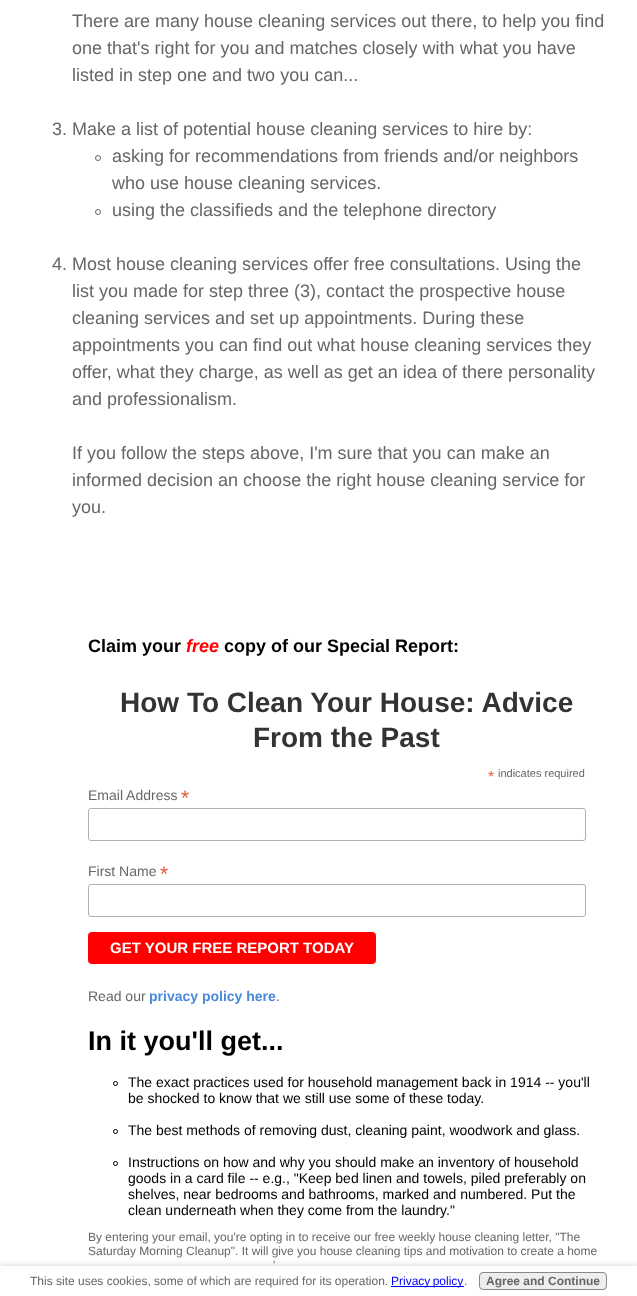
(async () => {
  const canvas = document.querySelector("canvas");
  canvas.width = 637;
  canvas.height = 1296;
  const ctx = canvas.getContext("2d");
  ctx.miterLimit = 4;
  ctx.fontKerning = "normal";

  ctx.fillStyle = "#ffffff";
  ctx.fillRect(0, 0, 637, 1296);
  ctx.beginPath();
  ctx.arc(98, 158, 2.5, 0, Math.PI * 2);
  ctx.strokeStyle = "#666666";
  ctx.stroke();
  ctx.beginPath();
  ctx.arc(98, 212, 2.5, 0, Math.PI * 2);
  ctx.stroke();
  ctx.beginPath();
  ctx.roundRect(88.5, 808.5, 497, 32, 2.5);
  ctx.strokeStyle = "#abb0b2";
  ctx.stroke();
  ctx.beginPath();
  ctx.roundRect(88.5, 884.5, 497, 32, 2.5);
  ctx.stroke();
  ctx.fillStyle = "#ff0000";
  ctx.beginPath();
  ctx.roundRect(88, 932, 288, 32, 4);
  ctx.fill();
  ctx.beginPath();
  ctx.arc(115.5, 1083.5, 2, 0, Math.PI * 2);
  ctx.strokeStyle = "#000000";
  ctx.stroke();
  ctx.beginPath();
  ctx.arc(115.5, 1131.5, 2, 0, Math.PI * 2);
  ctx.stroke();
  ctx.beginPath();
  ctx.arc(115.5, 1163.5, 2, 0, Math.PI * 2);
  ctx.stroke();
  ctx.fillStyle = "rgba(0, 0, 0, 0.2)";
  ctx.filter = "blur(5px)";
  ctx.beginPath();
  ctx.rect(-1, 1269, 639, 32);
  ctx.fill();
  ctx.filter = "none";
  ctx.filter = "blur(5px)";
  ctx.beginPath();
  ctx.rect(-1, 1269, 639, 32);
  ctx.fill();
  ctx.filter = "none";
  ctx.fillStyle = "#ffffff";
  ctx.fillRect(0, 1266, 637, 30);
  ctx.fillStyle = "#0000ff";
  ctx.fillRect(391, 1286, 73, 1);
  ctx.fillStyle = "#eeeeee";
  ctx.beginPath();
  ctx.roundRect(479.5, 1272.5, 127, 17, 3.5);
  ctx.fill();
  ctx.strokeStyle = "#888888";
  ctx.stroke();
  ctx.font = "18px Liberation Sans";
  ctx.fillStyle = "#666666";
  for (const [text, x, y] of [
    ["There are many house cleaning services out there, to help you find", 72, 27],
    ["one that's right for you and matches closely with what you have", 72, 54],
    ["listed in step one and two you can...", 72, 81],
    ["3. Make a list of potential house cleaning services to hire by:", 52, 135],
    ["asking for recommendations from friends and/or neighbors", 112, 162],
    ["who use house cleaning services.", 112, 189],
    ["using the classifieds and the telephone directory", 112, 216],
    ["4. Most house cleaning services offer free consultations. Using the", 52, 270],
    ["list you made for step three (3), contact the prospective house", 72, 297],
    ["cleaning services and set up appointments. During these", 72, 324],
    ["appointments you can find out what house cleaning services they", 72, 351],
    ["offer, what they charge, as well as get an idea of there personality", 72, 378],
    ["and professionalism.", 72, 405],
    ["If you follow the steps above, I'm sure that you can make an", 72, 459],
    ["informed decision an choose the right house cleaning service for", 72, 486],
    ["you.", 72, 513],
  ]) {
    ctx.fillText(text, x, y);
  }
  ctx.font = "bold 18px Liberation Sans";
  ctx.fillStyle = "#000000";
  ctx.fillText("Claim your", 88, 652);
  ctx.font = "italic bold 18px Liberation Sans";
  ctx.fillStyle = "#ff0000";
  ctx.fillText("free", 186, 652);
  ctx.font = "bold 18px Liberation Sans";
  ctx.fillStyle = "#000000";
  ctx.fillText("copy of our Special Report:", 224, 652);
  ctx.font = "bold 28px Liberation Sans";
  ctx.fillStyle = "#333333";
  ctx.fillText("How To Clean Your House: Advice", 120, 712);
  ctx.fillText("From the Past", 253, 747);
  ctx.font = "16px Liberation Sans";
  ctx.fillStyle = "#e85c41";
  ctx.fillText("*", 488, 782);
  ctx.font = "11px Liberation Sans";
  ctx.fillStyle = "#666666";
  ctx.fillText("indicates required", 498, 777);
  ctx.font = "14px Liberation Sans";
  ctx.fillText("Email Address", 88, 800);
  ctx.font = "21px Liberation Sans";
  ctx.fillStyle = "#e85c41";
  ctx.fillText("*", 181, 805);
  ctx.font = "14px Liberation Sans";
  ctx.fillStyle = "#666666";
  ctx.fillText("First Name", 88, 876);
  ctx.font = "21px Liberation Sans";
  ctx.fillStyle = "#e85c41";
  ctx.fillText("*", 160, 881);
  ctx.font = "bold 15px Liberation Sans";
  ctx.fillStyle = "#ffffff";
  ctx.fillText("GET YOUR FREE REPORT TODAY", 110, 953);
  ctx.font = "14px Liberation Sans";
  ctx.fillStyle = "#666666";
  ctx.fillText("Read our", 88, 1001);
  ctx.font = "bold 14px Liberation Sans";
  ctx.fillStyle = "#4a89dc";
  ctx.fillText("privacy policy here", 149, 1001);
  ctx.font = "14px Liberation Sans";
  ctx.fillStyle = "#666666";
  ctx.fillText(".", 276, 1001);
  ctx.font = "bold 27px Liberation Sans";
  ctx.fillStyle = "#000000";
  ctx.fillText("In it you'll get...", 88, 1050);
  ctx.font = "14px Liberation Sans";
  for (const [text, x, y] of [
    ["The exact practices used for household management back in 1914 -- you'll", 128, 1087],
    ["be shocked to know that we still use some of these today.", 128, 1103],
    ["The best methods of removing dust, cleaning paint, woodwork and glass.", 128, 1135],
    ["Instructions on how and why you should make an inventory of household", 128, 1167],
    ["goods in a card file -- e.g., \"Keep bed linen and towels, piled preferably on", 128, 1183],
    ["shelves, near bedrooms and bathrooms, marked and numbered. Put the", 128, 1199],
    ["clean underneath when they come from the laundry.\"", 128, 1215],
  ]) {
    ctx.fillText(text, x, y);
  }
  ctx.font = "12px Liberation Sans";
  ctx.fillStyle = "#666666";
  for (const [text, x, y] of [
    ["By entering your email, you're opting in to receive our free weekly house cleaning letter, \"The", 88, 1241],
    ["Saturday Morning Cleanup\". It will give you house cleaning tips and motivation to create a home", 88, 1255],
    ["'", 273, 1269],
    ["This site uses cookies, some of which are required for its operation.", 30, 1285],
  ]) {
    ctx.fillText(text, x, y);
  }
  ctx.wordSpacing = "-1px";
  ctx.fillStyle = "#0000ff";
  ctx.fillText("Privacy policy", 391, 1285);
  ctx.wordSpacing = "0px";
  ctx.fillStyle = "#666666";
  ctx.fillText(".", 464, 1285);
  ctx.font = "bold 12px Liberation Sans";
  ctx.fillText("Agree and Continue", 486, 1285);
})();
